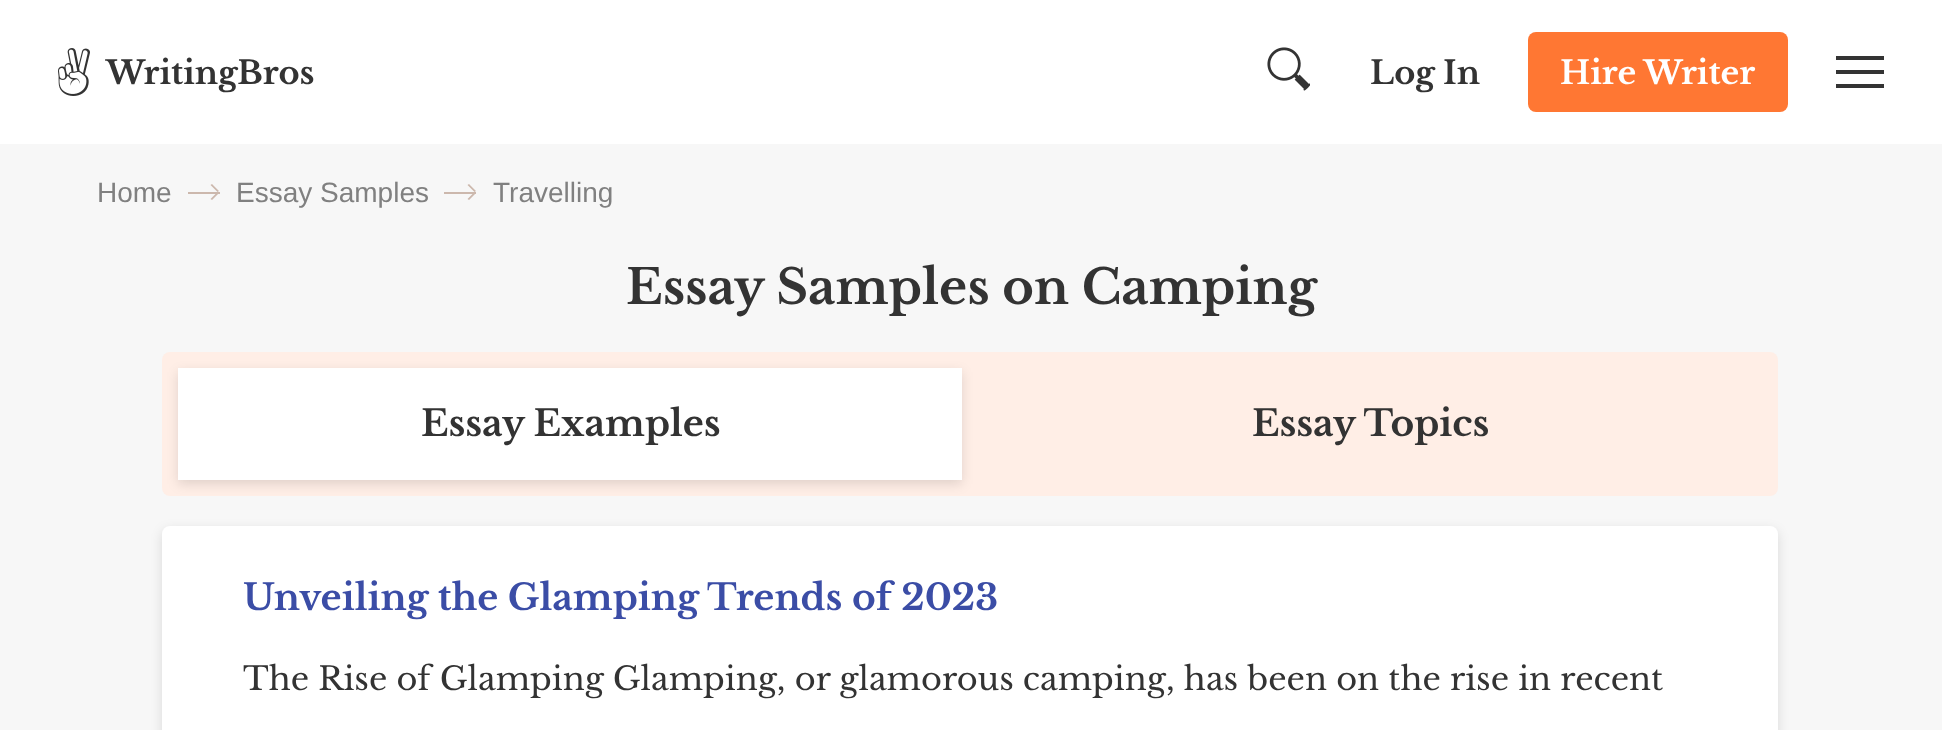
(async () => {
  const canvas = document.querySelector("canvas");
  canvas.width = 1942;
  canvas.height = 730;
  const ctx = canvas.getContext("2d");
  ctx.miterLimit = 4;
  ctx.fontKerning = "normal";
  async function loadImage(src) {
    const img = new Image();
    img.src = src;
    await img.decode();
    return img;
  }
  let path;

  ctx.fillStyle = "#f7f7f7";
  ctx.fillRect(0, 0, 1942, 730);
  ctx.fillStyle = "#ffffff";
  ctx.fillRect(0, 0, 1942, 144);
  ctx.drawImage(await loadImage("img/1.png"), 58, 48, 32, 48);
  ctx.drawImage(await loadImage("img/2.png"), 1267, 47, 43, 44);
  ctx.fillStyle = "#ff7733";
  ctx.beginPath();
  ctx.roundRect(1528, 32, 260, 80, 8);
  ctx.fill();
  for (const [x, y, w, h, color] of [
    [1836, 70, 48, 4, "#333333"],
    [1836, 56, 48, 4, "#333333"],
    [1836, 84, 48, 4, "#333333"],
    [188, 192, 32, 2, "#ccb8ad"],
  ]) {
    ctx.fillStyle = color;
    ctx.fillRect(x, y, w, h);
  }
  path = new Path2D("M210.5 199L217.5 192L219 193L212 200ZM212 184L219 191L217.5 192L210.5 185Z");
  ctx.fill(path);
  ctx.fillRect(444, 192, 32, 2);
  path = new Path2D("M467.5 199L474.5 192L476 193L469 200ZM469 184L476 191L474.5 192L467.5 185Z");
  ctx.fill(path);
  ctx.fillStyle = "#ffeee6";
  ctx.beginPath();
  ctx.roundRect(162, 352, 1616, 144, 8);
  ctx.fill();
  ctx.fillStyle = "rgba(0, 0, 0, 0.12)";
  ctx.filter = "blur(6px)";
  ctx.beginPath();
  ctx.rect(178, 372, 784, 112);
  ctx.fill();
  ctx.filter = "none";
  ctx.fillStyle = "#ffffff";
  ctx.fillRect(178, 368, 784, 112);
  ctx.fillStyle = "rgba(0, 0, 0, 0.12)";
  ctx.filter = "blur(6px)";
  ctx.beginPath();
  ctx.roundRect(162, 530, 1616, 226, 8);
  ctx.fill();
  ctx.filter = "none";
  ctx.fillStyle = "#ffffff";
  ctx.beginPath();
  ctx.roundRect(162, 526, 1616, 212, 8);
  ctx.fill();
  ctx.font = "bold 32px Libre Baskerville";
  ctx.fillStyle = "#333333";
  ctx.fillText("WritingBros", 106, 84);
  ctx.fillText("Log In", 1370, 84);
  ctx.fillStyle = "#ffffff";
  ctx.fillText("Hire Writer", 1560, 84);
  ctx.font = "28px Liberation Sans";
  ctx.fillStyle = "#808080";
  for (const [text, x, y] of [
    ["Home", 97, 202],
    ["Essay Samples", 236, 202],
    ["Travelling", 493, 202],
  ]) {
    ctx.fillText(text, x, y);
  }
  ctx.font = "bold 48px Libre Baskerville";
  ctx.fillStyle = "#333333";
  ctx.fillText("Essay Samples on Camping", 626, 304);
  ctx.font = "bold 36px Libre Baskerville";
  ctx.fillText("Essay Examples", 421, 436);
  ctx.fillText("Essay Topics", 1252, 436);
  ctx.fillStyle = "#3b4da6";
  ctx.fillText("Unveiling the Glamping Trends of 2023", 243, 610);
  ctx.font = "32px Libre Baskerville";
  ctx.fillStyle = "#333333";
  ctx.fillText("The Rise of Glamping Glamping, or glamorous camping, has been on the rise in recent", 243, 690);
})();
